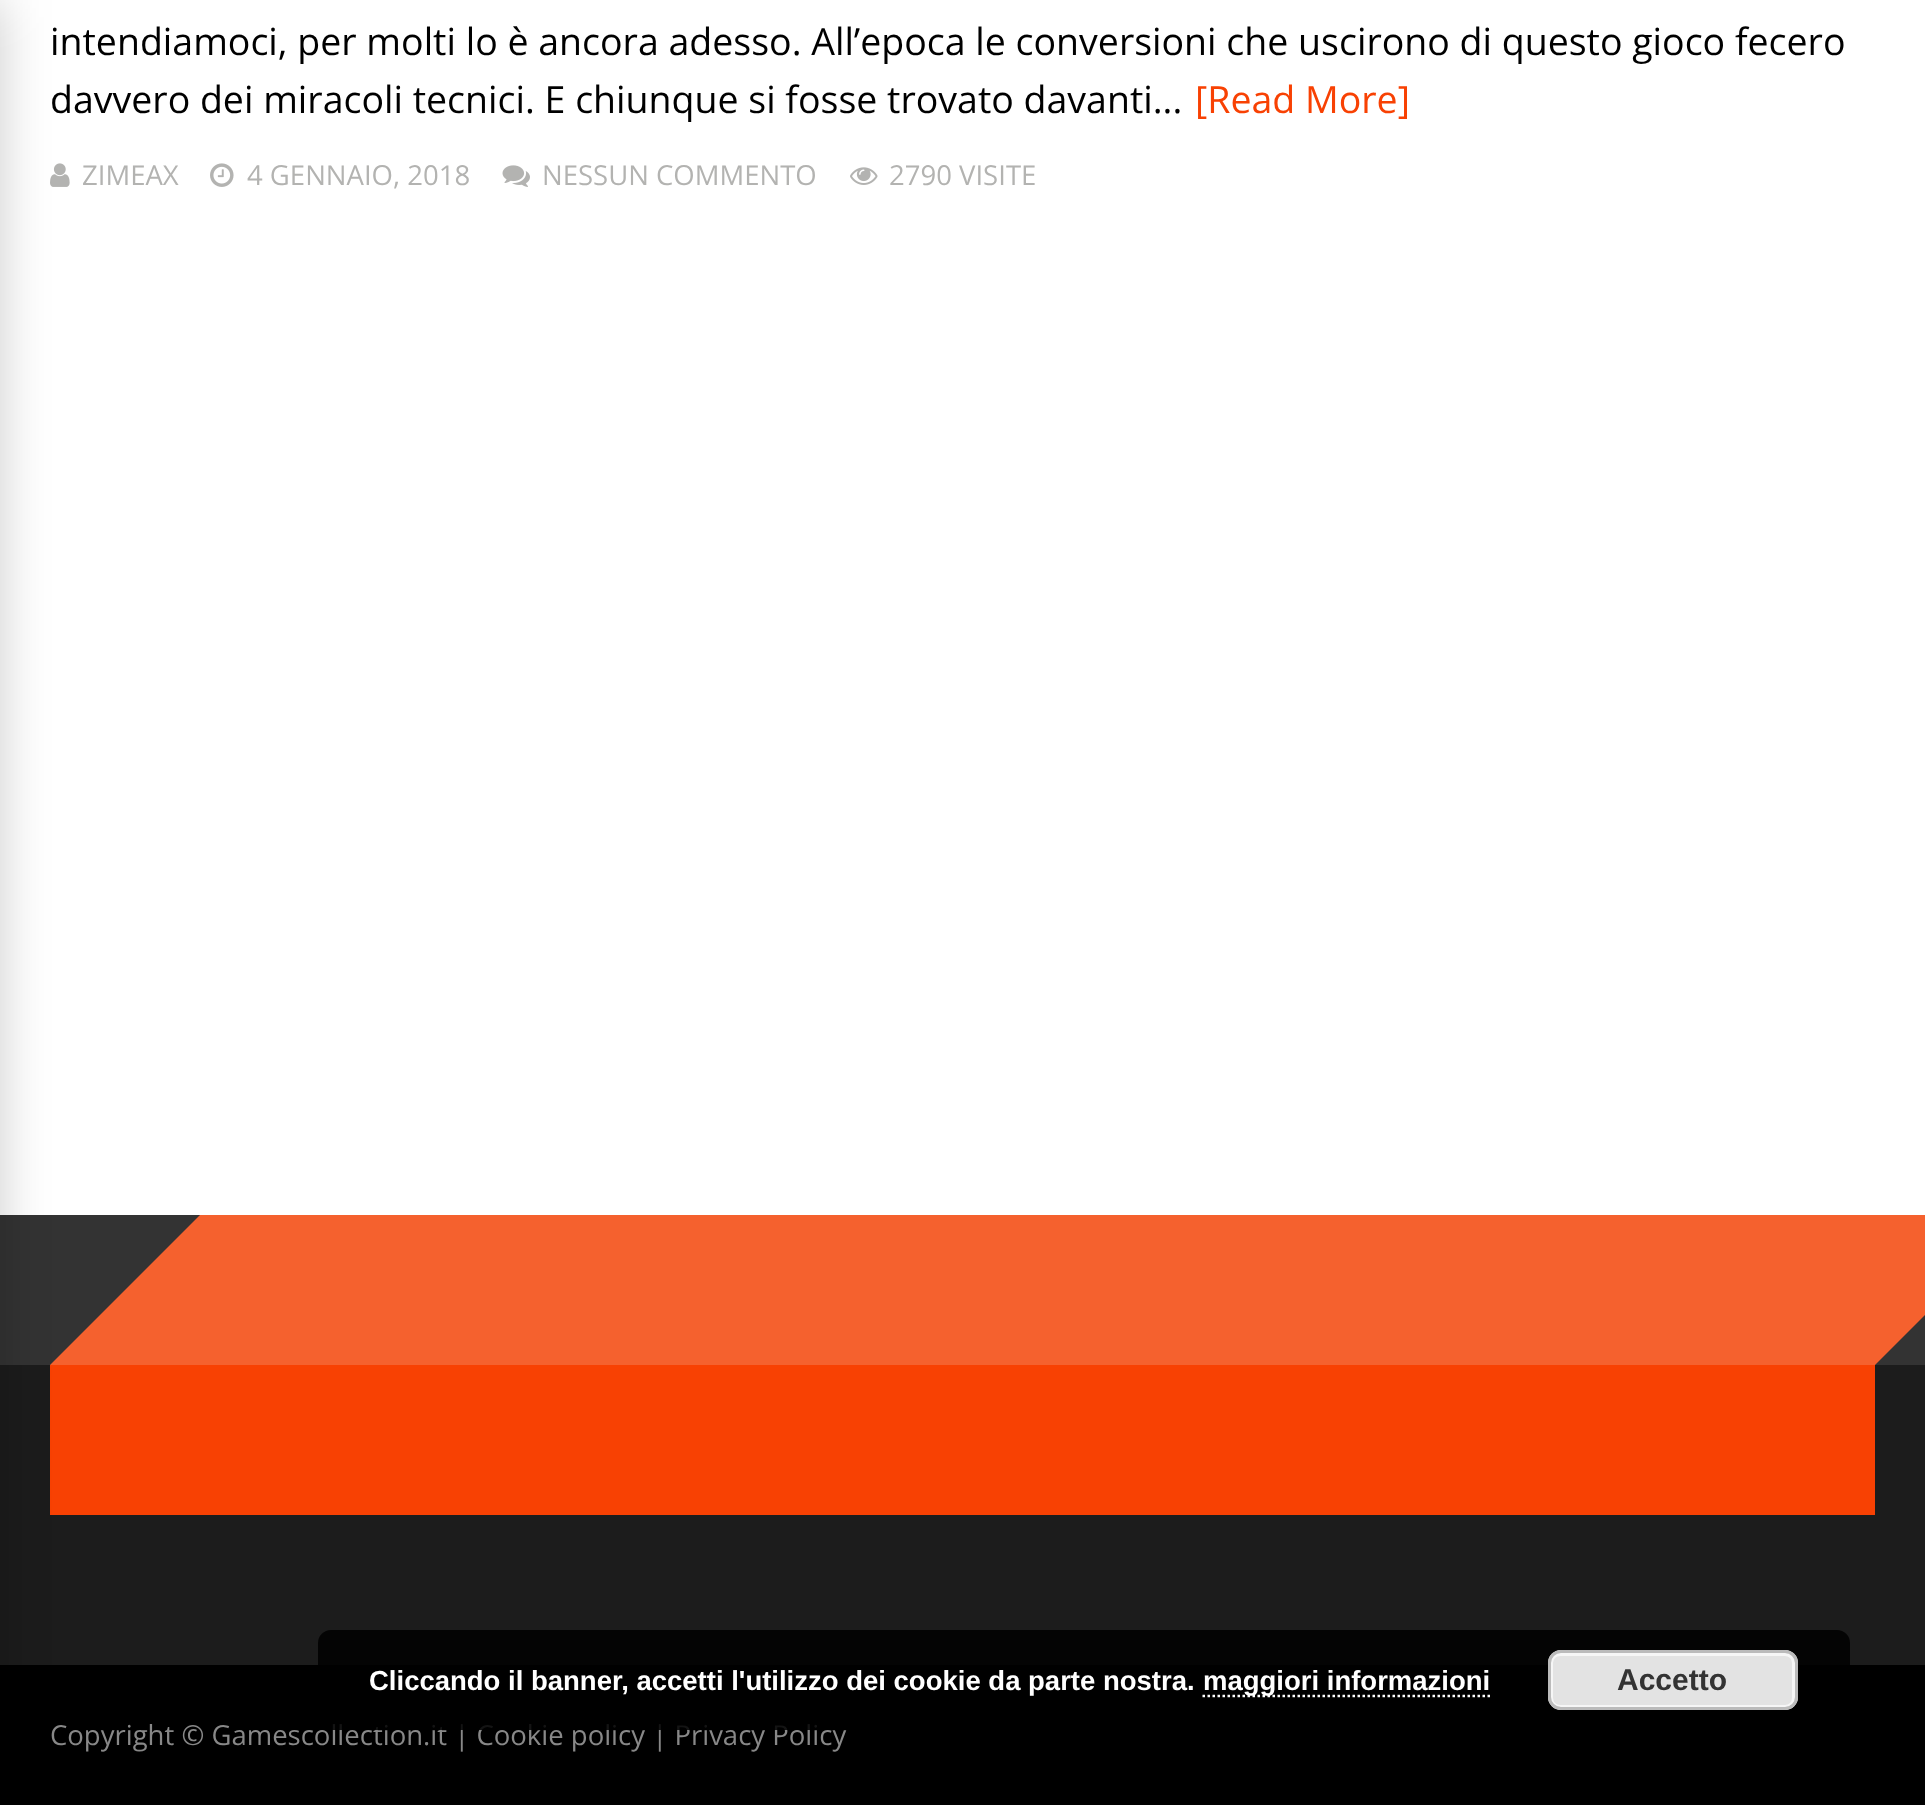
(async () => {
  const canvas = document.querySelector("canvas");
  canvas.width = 1925;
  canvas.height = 1805;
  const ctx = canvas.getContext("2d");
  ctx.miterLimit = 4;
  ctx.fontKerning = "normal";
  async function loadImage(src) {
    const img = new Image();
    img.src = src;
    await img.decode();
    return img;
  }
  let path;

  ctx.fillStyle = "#ffffff";
  ctx.fillRect(0, 0, 1925, 1805);
  ctx.drawImage(await loadImage("img/1.png"), 50, 163, 20, 24);
  ctx.fillStyle = "#333333";
  ctx.fillRect(0, 1215, 1925, 150);
  ctx.fillStyle = "#f5612e";
  path = new Path2D("M200 1215H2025L1875 1365H50Z");
  ctx.fill(path);
  for (const [x, y, w, h, color] of [
    [0, 1365, 1925, 300, "#1c1c1c"],
    [50, 1365, 1825, 150, "#f84103"],
    [0, 1665, 1925, 140, "#000000"],
  ]) {
    ctx.fillStyle = color;
    ctx.fillRect(x, y, w, h);
  }
  ctx.fillStyle = "rgba(0, 0, 0, 0.2)";
  ctx.filter = "blur(25px)";
  ctx.beginPath();
  ctx.rect(-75, 0, 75, 1805);
  ctx.fill();
  ctx.filter = "none";
  ctx.drawImage(await loadImage("img/2.png"), 210, 163, 24, 24);
  ctx.drawImage(await loadImage("img/3.png"), 502, 165, 28, 22);
  ctx.drawImage(await loadImage("img/4.png"), 850, 167, 28, 18);
  ctx.font = "37.5px Open Sans";
  ctx.fillStyle = "#000000";
  ctx.fillText("intendiamoci, per molti lo è ancora adesso. All’epoca le conversioni che uscirono di questo gioco fecero", 50, 55);
  ctx.fillText("davvero dei miracoli tecnici. E chiunque si fosse trovato davanti...", 50, 113);
  ctx.fillStyle = "#f84103";
  ctx.fillText("[Read More]", 1195, 113);
  ctx.font = "27.5px Open Sans";
  ctx.fillStyle = "#b3b3b1";
  for (const [text, x, y] of [
    ["ZIMEAX", 82, 185],
    ["4 GENNAIO, 2018", 247, 185],
    ["NESSUN COMMENTO", 542, 185],
    ["2790 VISITE", 889, 185],
  ]) {
    ctx.fillText(text, x, y);
  }
  ctx.fillStyle = "#888888";
  ctx.fillText("Copyright © Gamescollection.it | Cookie policy | Privacy Policy", 50, 1745);
  ctx.fillStyle = "rgba(0, 0, 0, 0.85)";
  ctx.beginPath();
  ctx.roundRect(318, 1630, 1532, 100, 13);
  ctx.fill();
  ctx.font = "bold 27.5px Liberation Sans";
  ctx.fillStyle = "#ffffff";
  ctx.fillText("Cliccando il banner, accetti l'utilizzo dei cookie da parte nostra.", 369, 1690);
  path = new Path2D("M1202.5 1696H1490");
  ctx.strokeStyle = "#ffffff";
  ctx.lineWidth = 2.5;
  ctx.setLineDash([2.5, 2.5]);
  ctx.stroke(path);
  ctx.fillText("maggiori informazioni", 1203, 1690);
  ctx.fillStyle = "#e3e3e3";
  ctx.beginPath();
  ctx.roundRect(1548, 1650, 250, 60, 13);
  ctx.fill();
  ctx.beginPath();
  ctx.roundRect(1551.5, 1654.5, 242, 52, 8.5);
  ctx.strokeStyle = "#f6f6f6";
  ctx.lineWidth = 3;
  ctx.setLineDash([]);
  ctx.stroke();
  ctx.beginPath();
  ctx.roundRect(1549.5, 1651.5, 247, 57, 11.5);
  ctx.strokeStyle = "#bbbbbb";
  ctx.stroke();
  ctx.font = "bold 30px Liberation Sans";
  ctx.fillStyle = "#333333";
  ctx.fillText("Accetto", 1617, 1690);
})();
